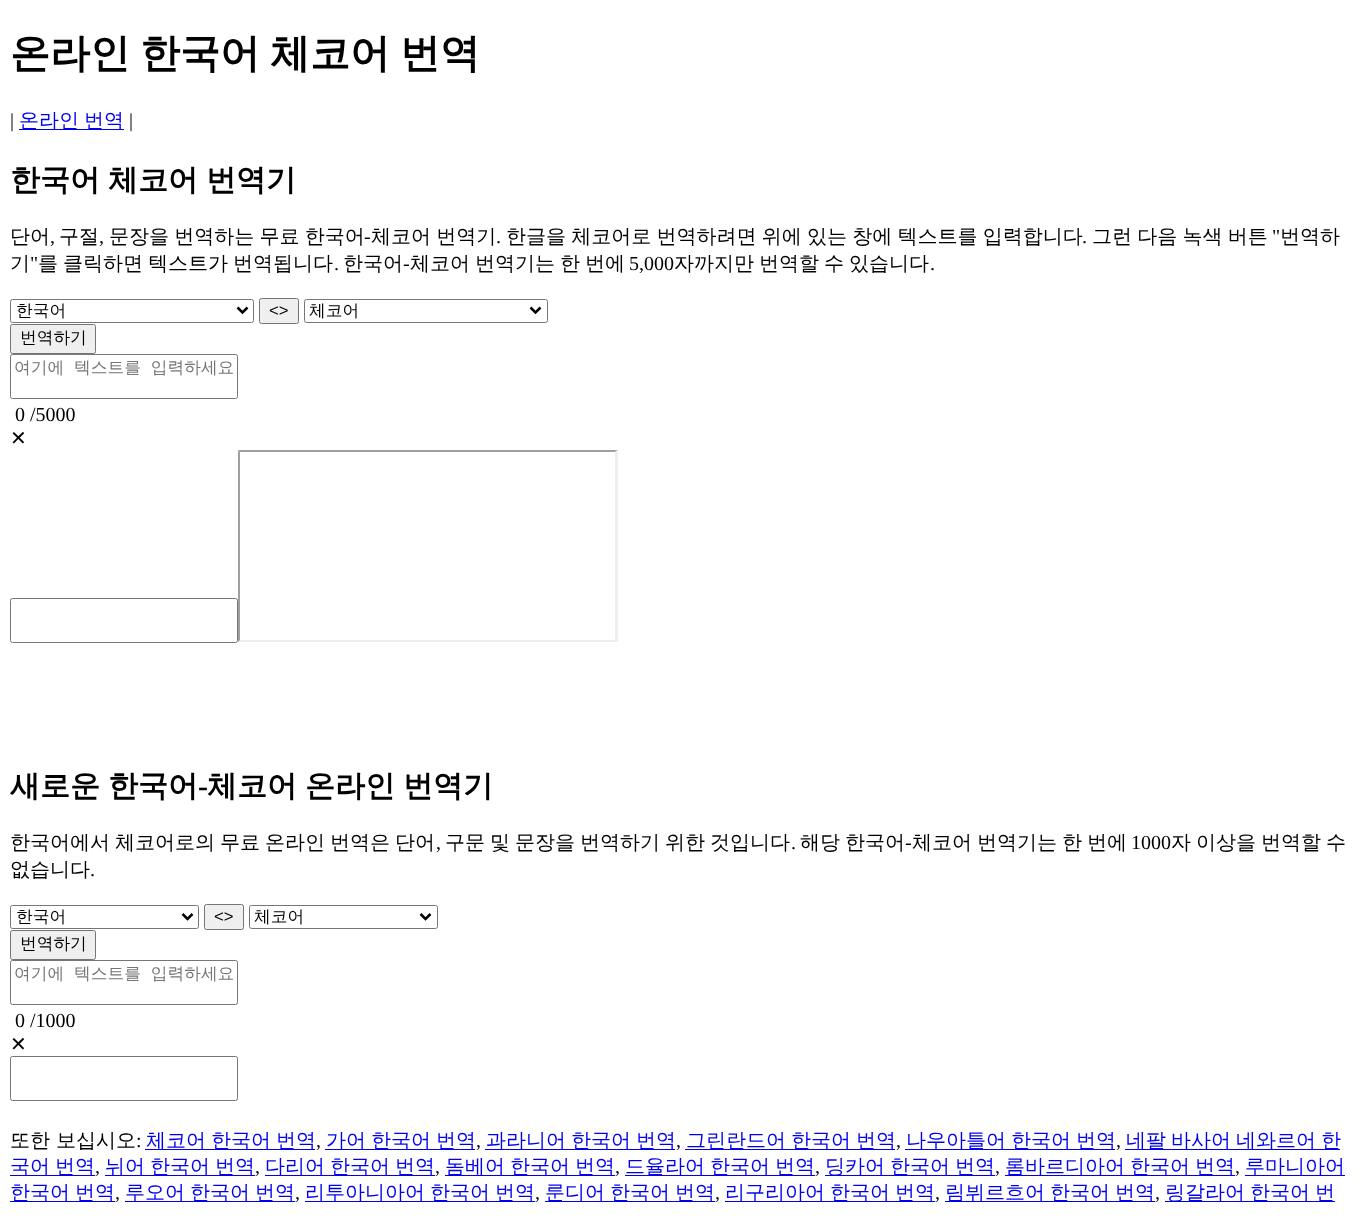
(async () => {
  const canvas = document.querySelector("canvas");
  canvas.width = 1359;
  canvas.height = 1217;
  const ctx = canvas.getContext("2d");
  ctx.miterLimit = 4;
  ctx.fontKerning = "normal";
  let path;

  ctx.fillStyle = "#ffffff";
  ctx.fillRect(0, 0, 1359, 1217);
  ctx.fillStyle = "#0000ee";
  ctx.fillRect(19, 129, 105, 1);
  ctx.beginPath();
  ctx.roundRect(10.5, 299.5, 243, 23, 2);
  ctx.strokeStyle = "#767676";
  ctx.stroke();
  path = new Path2D("M237.5 307.5L242.5 312.5L247.5 307.5");
  ctx.strokeStyle = "#000000";
  ctx.lineWidth = 2.5;
  ctx.stroke(path);
  ctx.fillStyle = "#efefef";
  ctx.beginPath();
  ctx.roundRect(259.5, 298.5, 39, 25, 2);
  ctx.fill();
  ctx.strokeStyle = "#767676";
  ctx.lineWidth = 1;
  ctx.stroke();
  ctx.beginPath();
  ctx.roundRect(304.5, 299.5, 243, 23, 2);
  ctx.stroke();
  path = new Path2D("M530.5 307.5L535.5 312.5L540.5 307.5");
  ctx.strokeStyle = "#000000";
  ctx.lineWidth = 2.5;
  ctx.stroke(path);
  ctx.beginPath();
  ctx.roundRect(10.5, 324.5, 85, 29, 2);
  ctx.fill();
  ctx.strokeStyle = "#767676";
  ctx.lineWidth = 1;
  ctx.stroke();
  ctx.beginPath();
  ctx.roundRect(10.5, 354.5, 227, 44, 2);
  ctx.stroke();
  ctx.fillStyle = "#9f9f9f";
  path = new Path2D("M238 450H618L615 452H240Z");
  ctx.fill(path);
  ctx.beginPath();
  ctx.roundRect(10.5, 598.5, 227, 44, 2);
  ctx.stroke();
  ctx.fillStyle = "#eeeeee";
  path = new Path2D("M618 450V642L615 640V452Z");
  ctx.fill(path);
  path = new Path2D("M618 642H238L240 640H615Z");
  ctx.fill(path);
  ctx.fillStyle = "#9f9f9f";
  path = new Path2D("M238 642V450L240 452V640Z");
  ctx.fill(path);
  ctx.beginPath();
  ctx.roundRect(10.5, 905.5, 188, 23, 2);
  ctx.stroke();
  path = new Path2D("M182.5 914L187.5 919L192.5 914");
  ctx.strokeStyle = "#000000";
  ctx.lineWidth = 2.5;
  ctx.stroke(path);
  ctx.fillStyle = "#efefef";
  ctx.beginPath();
  ctx.roundRect(204.5, 904.5, 39, 25, 2);
  ctx.fill();
  ctx.strokeStyle = "#767676";
  ctx.lineWidth = 1;
  ctx.stroke();
  ctx.beginPath();
  ctx.roundRect(249.5, 905.5, 188, 23, 2);
  ctx.stroke();
  path = new Path2D("M420.5 914L425.5 919L430.5 914");
  ctx.strokeStyle = "#000000";
  ctx.lineWidth = 2.5;
  ctx.stroke(path);
  ctx.beginPath();
  ctx.roundRect(10.5, 930.5, 85, 29, 2);
  ctx.fill();
  ctx.strokeStyle = "#767676";
  ctx.lineWidth = 1;
  ctx.stroke();
  ctx.beginPath();
  ctx.roundRect(10.5, 960.5, 227, 44, 2);
  ctx.stroke();
  ctx.beginPath();
  ctx.roundRect(10.5, 1056.5, 227, 44, 2);
  ctx.stroke();
  for (const [x, y, w, h, color] of [
    [145, 1149, 170, 1, "#0000ee"],
    [325, 1149, 150, 1, "#0000ee"],
    [485, 1149, 190, 1, "#0000ee"],
    [685, 1149, 210, 1, "#0000ee"],
    [905, 1149, 210, 1, "#0000ee"],
    [1125, 1149, 215, 1, "#0000ee"],
    [10, 1175, 85, 1, "#0000ee"],
    [105, 1175, 150, 1, "#0000ee"],
    [265, 1175, 170, 1, "#0000ee"],
    [445, 1175, 170, 1, "#0000ee"],
    [625, 1175, 190, 1, "#0000ee"],
    [825, 1175, 170, 1, "#0000ee"],
    [1005, 1175, 230, 1, "#0000ee"],
    [1245, 1175, 100, 1, "#0000ee"],
    [10, 1201, 105, 1, "#0000ee"],
    [125, 1201, 170, 1, "#0000ee"],
    [305, 1201, 230, 1, "#0000ee"],
    [545, 1201, 170, 1, "#0000ee"],
    [725, 1201, 210, 1, "#0000ee"],
    [945, 1201, 210, 1, "#0000ee"],
    [1165, 1201, 170, 1, "#0000ee"],
  ]) {
    ctx.fillStyle = color;
    ctx.fillRect(x, y, w, h);
  }
  ctx.wordSpacing = "-2px";
  ctx.font = "bold 40px WenQuanYi Zen Hei";
  ctx.fillStyle = "#000000";
  ctx.fillText("온라인 한국어 체코어 번역", 10, 67);
  ctx.wordSpacing = "0px";
  ctx.font = "20px Liberation Serif";
  ctx.fillText("|", 10, 127);
  ctx.wordSpacing = "-1px";
  ctx.font = "500 20px WenQuanYi Zen Hei";
  ctx.fillStyle = "#0000ee";
  ctx.fillText("온라인 번역", 19, 127);
  ctx.wordSpacing = "0px";
  ctx.font = "20px Liberation Serif";
  ctx.fillStyle = "#000000";
  ctx.fillText("|", 129, 127);
  ctx.wordSpacing = "-1px";
  ctx.font = "bold 30px WenQuanYi Zen Hei";
  ctx.fillText("한국어 체코어 번역기", 10, 190);
  ctx.wordSpacing = "0px";
  ctx.font = "500 20px WenQuanYi Zen Hei";
  ctx.fillText("단어", 10, 243);
  ctx.fillText("구절", 59, 243);
  ctx.wordSpacing = "-0.75px";
  for (const [text, x, y] of [
    ["문장을 번역하는 무료 한국어", 109, 243],
    ["체코어 번역기", 371, 243],
    ["한글을 체코어로 번역하려면 위에 있는 창에 텍스트를 입력합니다", 506, 243],
    ["그런 다음 녹색 버튼", 1092, 243],
  ]) {
    ctx.fillText(text, x, y);
  }
  ctx.wordSpacing = "0px";
  ctx.font = "20px Liberation Serif";
  ctx.fillText("\"", 1272, 243);
  ctx.font = "500 20px WenQuanYi Zen Hei";
  ctx.fillText("번역하", 1280, 243);
  ctx.font = "20px Liberation Serif";
  for (const [text, x, y] of [
    ["-", 364, 243],
    [",", 50, 243],
    [",", 99, 243],
    [".", 496, 243],
    [".", 1082, 243],
  ]) {
    ctx.fillText(text, x, y);
  }
  ctx.font = "500 20px WenQuanYi Zen Hei";
  ctx.fillText("기", 10, 270);
  ctx.font = "20px Liberation Serif";
  ctx.fillText("\"", 30, 270);
  ctx.wordSpacing = "-1px";
  ctx.font = "500 20px WenQuanYi Zen Hei";
  ctx.fillText("를 클릭하면 텍스트가 번역됩니다", 38, 270);
  ctx.wordSpacing = "0px";
  ctx.fillText("한국어", 343, 270);
  ctx.font = "20px Liberation Serif";
  ctx.fillText("-", 403, 270);
  ctx.wordSpacing = "-1px";
  ctx.font = "500 20px WenQuanYi Zen Hei";
  ctx.fillText("체코어 번역기는 한 번에", 410, 270);
  ctx.wordSpacing = "0px";
  ctx.font = "20px Liberation Serif";
  ctx.fillText("5,000", 629, 270);
  ctx.wordSpacing = "-1px";
  ctx.font = "500 20px WenQuanYi Zen Hei";
  ctx.fillText("자까지만 번역할 수 있습니다", 674, 270);
  ctx.wordSpacing = "0px";
  ctx.font = "20px Liberation Serif";
  ctx.fillText(".", 334, 270);
  ctx.fillText(".", 930, 270);
  ctx.font = "500 16.7px WenQuanYi Zen Hei";
  ctx.fillText("한국어", 16, 316);
  ctx.font = "16.7px Liberation Sans";
  ctx.fillText("<>", 269, 316);
  ctx.font = "500 16.7px WenQuanYi Zen Hei";
  ctx.fillText("체코어", 309, 316);
  ctx.fillText("번역하기", 20, 343);
  ctx.wordSpacing = "5px";
  ctx.fillStyle = "#757575";
  ctx.fillText("여기에 텍스트를 입력하세요", 14, 373);
  ctx.wordSpacing = "0px";
  ctx.font = "20px Liberation Serif";
  ctx.fillStyle = "#000000";
  ctx.fillText("0 /5000", 15, 421);
  ctx.font = "20px DejaVu Sans";
  ctx.fillText("✕", 10, 445);
  ctx.wordSpacing = "-1px";
  ctx.font = "bold 30px WenQuanYi Zen Hei";
  ctx.fillText("새로운 한국어", 10, 796);
  ctx.wordSpacing = "0px";
  ctx.font = "bold 30px Liberation Serif";
  ctx.fillText("-", 198, 796);
  ctx.wordSpacing = "-1px";
  ctx.font = "bold 30px WenQuanYi Zen Hei";
  ctx.fillText("체코어 온라인 번역기", 207, 796);
  ctx.font = "500 20px WenQuanYi Zen Hei";
  for (const [text, x, y] of [
    ["한국어에서 체코어로의 무료 온라인 번역은 단어", 10, 849],
    ["구문 및 문장을 번역하기 위한 것입니다", 445, 849],
    ["해당 한국어", 800, 849],
  ]) {
    ctx.fillText(text, x, y);
  }
  ctx.wordSpacing = "0px";
  ctx.font = "20px Liberation Serif";
  ctx.fillText("-", 905, 849);
  ctx.wordSpacing = "-1px";
  ctx.font = "500 20px WenQuanYi Zen Hei";
  ctx.fillText("체코어 번역기는 한 번에", 912, 849);
  ctx.wordSpacing = "0px";
  ctx.font = "20px Liberation Serif";
  ctx.fillText("1000", 1131, 849);
  ctx.wordSpacing = "-1px";
  ctx.font = "500 20px WenQuanYi Zen Hei";
  ctx.fillText("자 이상을 번역할 수", 1171, 849);
  ctx.wordSpacing = "0px";
  ctx.font = "20px Liberation Serif";
  ctx.fillText(",", 436, 849);
  ctx.fillText(".", 791, 849);
  ctx.font = "500 20px WenQuanYi Zen Hei";
  ctx.fillText("없습니다", 10, 876);
  ctx.font = "20px Liberation Serif";
  ctx.fillText(".", 90, 876);
  ctx.font = "500 16.7px WenQuanYi Zen Hei";
  ctx.fillText("한국어", 16, 922);
  ctx.font = "16.7px Liberation Sans";
  ctx.fillText("<>", 214, 922);
  ctx.font = "500 16.7px WenQuanYi Zen Hei";
  ctx.fillText("체코어", 254, 922);
  ctx.fillText("번역하기", 20, 949);
  ctx.wordSpacing = "5px";
  ctx.fillStyle = "#757575";
  ctx.fillText("여기에 텍스트를 입력하세요", 14, 979);
  ctx.wordSpacing = "0px";
  ctx.font = "20px Liberation Serif";
  ctx.fillStyle = "#000000";
  ctx.fillText("0 /1000", 15, 1027);
  ctx.font = "20px DejaVu Sans";
  ctx.fillText("✕", 10, 1051);
  ctx.font = "500 20px WenQuanYi Zen Hei";
  ctx.fillText("또한 보십시오", 10, 1147);
  ctx.font = "20px Liberation Serif";
  ctx.fillText(":", 136, 1147);
  ctx.wordSpacing = "-1px";
  ctx.font = "500 20px WenQuanYi Zen Hei";
  ctx.fillStyle = "#0000ee";
  ctx.fillText("체코어 한국어 번역", 146, 1147);
  ctx.wordSpacing = "0px";
  ctx.font = "20px Liberation Serif";
  ctx.fillStyle = "#000000";
  ctx.fillText(",", 316, 1147);
  ctx.wordSpacing = "-1px";
  ctx.font = "500 20px WenQuanYi Zen Hei";
  ctx.fillStyle = "#0000ee";
  ctx.fillText("가어 한국어 번역", 326, 1147);
  ctx.wordSpacing = "0px";
  ctx.font = "20px Liberation Serif";
  ctx.fillStyle = "#000000";
  ctx.fillText(",", 476, 1147);
  ctx.wordSpacing = "-1px";
  ctx.font = "500 20px WenQuanYi Zen Hei";
  ctx.fillStyle = "#0000ee";
  ctx.fillText("과라니어 한국어 번역", 486, 1147);
  ctx.wordSpacing = "0px";
  ctx.font = "20px Liberation Serif";
  ctx.fillStyle = "#000000";
  ctx.fillText(",", 676, 1147);
  ctx.wordSpacing = "-1px";
  ctx.font = "500 20px WenQuanYi Zen Hei";
  ctx.fillStyle = "#0000ee";
  ctx.fillText("그린란드어 한국어 번역", 686, 1147);
  ctx.wordSpacing = "0px";
  ctx.font = "20px Liberation Serif";
  ctx.fillStyle = "#000000";
  ctx.fillText(",", 896, 1147);
  ctx.wordSpacing = "-1px";
  ctx.font = "500 20px WenQuanYi Zen Hei";
  ctx.fillStyle = "#0000ee";
  ctx.fillText("나우아틀어 한국어 번역", 906, 1147);
  ctx.wordSpacing = "0px";
  ctx.font = "20px Liberation Serif";
  ctx.fillStyle = "#000000";
  ctx.fillText(",", 1116, 1147);
  ctx.wordSpacing = "-1px";
  ctx.font = "500 20px WenQuanYi Zen Hei";
  ctx.fillStyle = "#0000ee";
  ctx.fillText("네팔 바사어 네와르어 한", 1126, 1147);
  ctx.fillText("국어 번역", 10, 1173);
  ctx.wordSpacing = "0px";
  ctx.font = "20px Liberation Serif";
  ctx.fillStyle = "#000000";
  ctx.fillText(",", 95, 1173);
  ctx.wordSpacing = "-1px";
  ctx.font = "500 20px WenQuanYi Zen Hei";
  ctx.fillStyle = "#0000ee";
  ctx.fillText("뉘어 한국어 번역", 105, 1173);
  ctx.wordSpacing = "0px";
  ctx.font = "20px Liberation Serif";
  ctx.fillStyle = "#000000";
  ctx.fillText(",", 255, 1173);
  ctx.wordSpacing = "-1px";
  ctx.font = "500 20px WenQuanYi Zen Hei";
  ctx.fillStyle = "#0000ee";
  ctx.fillText("다리어 한국어 번역", 265, 1173);
  ctx.wordSpacing = "0px";
  ctx.font = "20px Liberation Serif";
  ctx.fillStyle = "#000000";
  ctx.fillText(",", 435, 1173);
  ctx.wordSpacing = "-1px";
  ctx.font = "500 20px WenQuanYi Zen Hei";
  ctx.fillStyle = "#0000ee";
  ctx.fillText("돔베어 한국어 번역", 445, 1173);
  ctx.wordSpacing = "0px";
  ctx.font = "20px Liberation Serif";
  ctx.fillStyle = "#000000";
  ctx.fillText(",", 615, 1173);
  ctx.wordSpacing = "-1px";
  ctx.font = "500 20px WenQuanYi Zen Hei";
  ctx.fillStyle = "#0000ee";
  ctx.fillText("드율라어 한국어 번역", 625, 1173);
  ctx.wordSpacing = "0px";
  ctx.font = "20px Liberation Serif";
  ctx.fillStyle = "#000000";
  ctx.fillText(",", 815, 1173);
  ctx.wordSpacing = "-1px";
  ctx.font = "500 20px WenQuanYi Zen Hei";
  ctx.fillStyle = "#0000ee";
  ctx.fillText("딩카어 한국어 번역", 825, 1173);
  ctx.wordSpacing = "0px";
  ctx.font = "20px Liberation Serif";
  ctx.fillStyle = "#000000";
  ctx.fillText(",", 995, 1173);
  ctx.wordSpacing = "-1px";
  ctx.font = "500 20px WenQuanYi Zen Hei";
  ctx.fillStyle = "#0000ee";
  ctx.fillText("롬바르디아어 한국어 번역", 1005, 1173);
  ctx.wordSpacing = "0px";
  ctx.font = "20px Liberation Serif";
  ctx.fillStyle = "#000000";
  ctx.fillText(",", 1235, 1173);
  ctx.font = "500 20px WenQuanYi Zen Hei";
  ctx.fillStyle = "#0000ee";
  ctx.fillText("루마니아어", 1245, 1173);
  ctx.wordSpacing = "-1px";
  ctx.fillText("한국어 번역", 10, 1199);
  ctx.wordSpacing = "0px";
  ctx.font = "20px Liberation Serif";
  ctx.fillStyle = "#000000";
  ctx.fillText(",", 115, 1199);
  ctx.wordSpacing = "-1px";
  ctx.font = "500 20px WenQuanYi Zen Hei";
  ctx.fillStyle = "#0000ee";
  ctx.fillText("루오어 한국어 번역", 125, 1199);
  ctx.wordSpacing = "0px";
  ctx.font = "20px Liberation Serif";
  ctx.fillStyle = "#000000";
  ctx.fillText(",", 295, 1199);
  ctx.wordSpacing = "-1px";
  ctx.font = "500 20px WenQuanYi Zen Hei";
  ctx.fillStyle = "#0000ee";
  ctx.fillText("리투아니아어 한국어 번역", 305, 1199);
  ctx.wordSpacing = "0px";
  ctx.font = "20px Liberation Serif";
  ctx.fillStyle = "#000000";
  ctx.fillText(",", 535, 1199);
  ctx.wordSpacing = "-1px";
  ctx.font = "500 20px WenQuanYi Zen Hei";
  ctx.fillStyle = "#0000ee";
  ctx.fillText("룬디어 한국어 번역", 545, 1199);
  ctx.wordSpacing = "0px";
  ctx.font = "20px Liberation Serif";
  ctx.fillStyle = "#000000";
  ctx.fillText(",", 715, 1199);
  ctx.wordSpacing = "-1px";
  ctx.font = "500 20px WenQuanYi Zen Hei";
  ctx.fillStyle = "#0000ee";
  ctx.fillText("리구리아어 한국어 번역", 725, 1199);
  ctx.wordSpacing = "0px";
  ctx.font = "20px Liberation Serif";
  ctx.fillStyle = "#000000";
  ctx.fillText(",", 935, 1199);
  ctx.wordSpacing = "-1px";
  ctx.font = "500 20px WenQuanYi Zen Hei";
  ctx.fillStyle = "#0000ee";
  ctx.fillText("림뷔르흐어 한국어 번역", 945, 1199);
  ctx.wordSpacing = "0px";
  ctx.font = "20px Liberation Serif";
  ctx.fillStyle = "#000000";
  ctx.fillText(",", 1155, 1199);
  ctx.wordSpacing = "-1px";
  ctx.font = "500 20px WenQuanYi Zen Hei";
  ctx.fillStyle = "#0000ee";
  ctx.fillText("링갈라어 한국어 번", 1165, 1199);
})();
